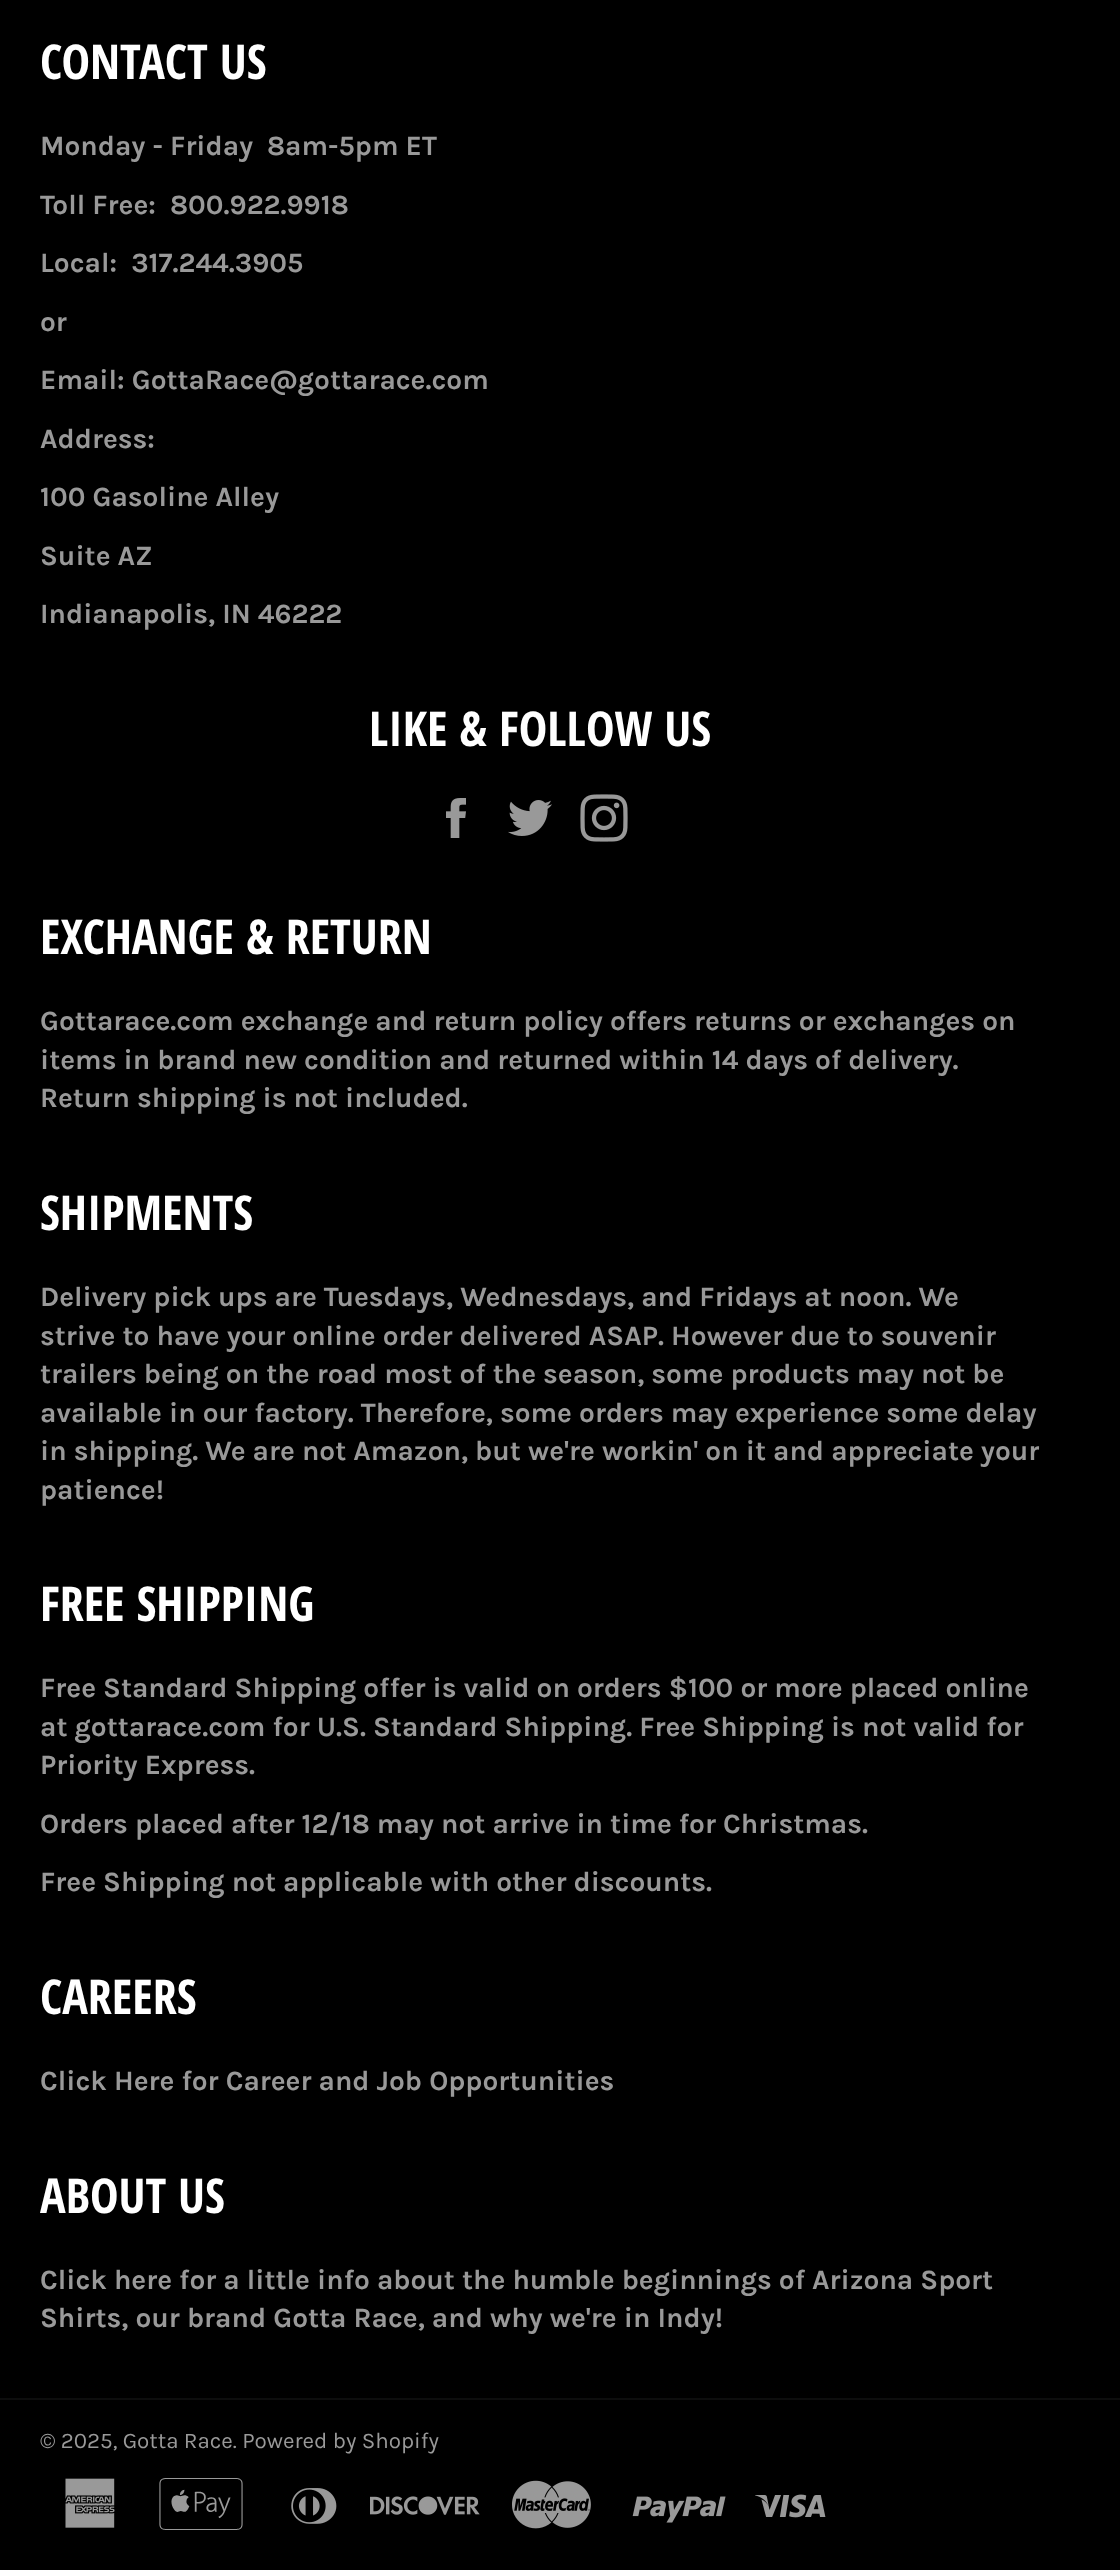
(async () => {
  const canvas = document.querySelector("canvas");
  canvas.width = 1120;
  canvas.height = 2570;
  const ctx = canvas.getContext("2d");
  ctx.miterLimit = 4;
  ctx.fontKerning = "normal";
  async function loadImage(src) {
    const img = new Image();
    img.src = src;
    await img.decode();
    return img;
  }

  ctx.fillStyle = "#000000";
  ctx.fillRect(0, 0, 1120, 2570);
  ctx.drawImage(await loadImage("img/1.png"), 446, 798, 20, 40);
  ctx.drawImage(await loadImage("img/2.png"), 508, 800, 44, 36);
  ctx.drawImage(await loadImage("img/3.png"), 580, 794, 48, 48);
  ctx.fillStyle = "#0d0d0d";
  ctx.fillRect(0, 2398, 1120, 2);
  ctx.drawImage(await loadImage("img/4.png"), 65, 2478, 50, 50);
  ctx.drawImage(await loadImage("img/5.png"), 159, 2478, 84, 52);
  ctx.drawImage(await loadImage("img/6.png"), 291, 2488, 46, 36);
  ctx.drawImage(await loadImage("img/7.png"), 370, 2496, 110, 19);
  ctx.drawImage(await loadImage("img/8.png"), 512, 2480, 79, 49);
  ctx.drawImage(await loadImage("img/9.png"), 632, 2496, 94, 27);
  ctx.drawImage(await loadImage("img/10.png"), 755, 2494, 71, 24);
  ctx.font = "bold 48px Open Sans Condensed";
  ctx.fillStyle = "#ffffff";
  ctx.fillText("CONTACT US", 40, 79);
  ctx.font = "bold 28px Karla";
  ctx.fillStyle = "#999999";
  for (const [text, x, y] of [
    ["Monday - Friday", 40, 155],
    ["8am-5pm ET", 267, 155],
    ["Toll Free:  800.922.9918", 40, 214],
    ["Local:  317.244.3905", 40, 272],
    ["or", 40, 331],
    ["Email: GottaRace@gottarace.com", 40, 389],
    ["Address:", 40, 448],
    ["100 Gasoline Alley", 40, 506],
    ["Suite AZ", 40, 565],
    ["Indianapolis, IN 46222", 40, 623],
  ]) {
    ctx.fillText(text, x, y);
  }
  ctx.font = "bold 48px Open Sans Condensed";
  ctx.fillStyle = "#ffffff";
  ctx.fillText("LIKE & FOLLOW US", 369, 746);
  ctx.fillText("EXCHANGE & RETURN", 40, 954);
  ctx.font = "bold 28px Karla";
  ctx.fillStyle = "#999999";
  for (const [text, x, y] of [
    ["Gottarace.com exchange and return policy offers returns or exchanges on", 40, 1030],
    ["items in brand new condition and returned within 14 days of delivery.", 40, 1069],
    ["Return shipping is not included.", 40, 1107],
  ]) {
    ctx.fillText(text, x, y);
  }
  ctx.font = "bold 48px Open Sans Condensed";
  ctx.fillStyle = "#ffffff";
  ctx.fillText("SHIPMENTS", 40, 1230);
  ctx.font = "bold 28px Karla";
  ctx.fillStyle = "#999999";
  for (const [text, x, y] of [
    ["Delivery pick ups are Tuesdays, Wednesdays, and Fridays at noon. We", 40, 1306],
    ["strive to have your online order delivered ASAP. However due to souvenir", 40, 1345],
    ["trailers being on the road most of the season, some products may not be", 40, 1383],
    ["available in our factory. Therefore, some orders may experience some delay", 40, 1422],
    ["in shipping. We are not Amazon, but we're workin' on it and appreciate your", 40, 1460],
    ["patience!", 40, 1499],
  ]) {
    ctx.fillText(text, x, y);
  }
  ctx.font = "bold 48px Open Sans Condensed";
  ctx.fillStyle = "#ffffff";
  ctx.fillText("FREE SHIPPING", 40, 1621);
  ctx.font = "bold 28px Karla";
  ctx.fillStyle = "#999999";
  for (const [text, x, y] of [
    ["Free Standard Shipping offer is valid on orders $100 or more placed online", 40, 1697],
    ["at gottarace.com for U.S. Standard Shipping. Free Shipping is not valid for", 40, 1736],
    ["Priority Express.", 40, 1774],
    ["Orders placed after 12/18 may not arrive in time for Christmas.", 40, 1833],
    ["Free Shipping not applicable with other discounts.", 40, 1891],
  ]) {
    ctx.fillText(text, x, y);
  }
  ctx.font = "bold 48px Open Sans Condensed";
  ctx.fillStyle = "#ffffff";
  ctx.fillText("CAREERS", 40, 2014);
  ctx.font = "bold 28px Karla";
  ctx.fillStyle = "#999999";
  ctx.fillText("Click Here for Career and Job Opportunities", 40, 2090);
  ctx.font = "bold 48px Open Sans Condensed";
  ctx.fillStyle = "#ffffff";
  ctx.fillText("ABOUT US", 40, 2213);
  ctx.font = "bold 28px Karla";
  ctx.fillStyle = "#999999";
  ctx.fillText("Click here for a little info about the humble beginnings of Arizona Sport", 40, 2289);
  ctx.fillText("Shirts, our brand Gotta Race, and why we're in Indy!", 40, 2327);
  ctx.font = "22.4px Karla";
  ctx.fillText("© 2025, Gotta Race. Powered by Shopify", 40, 2448);
})();
